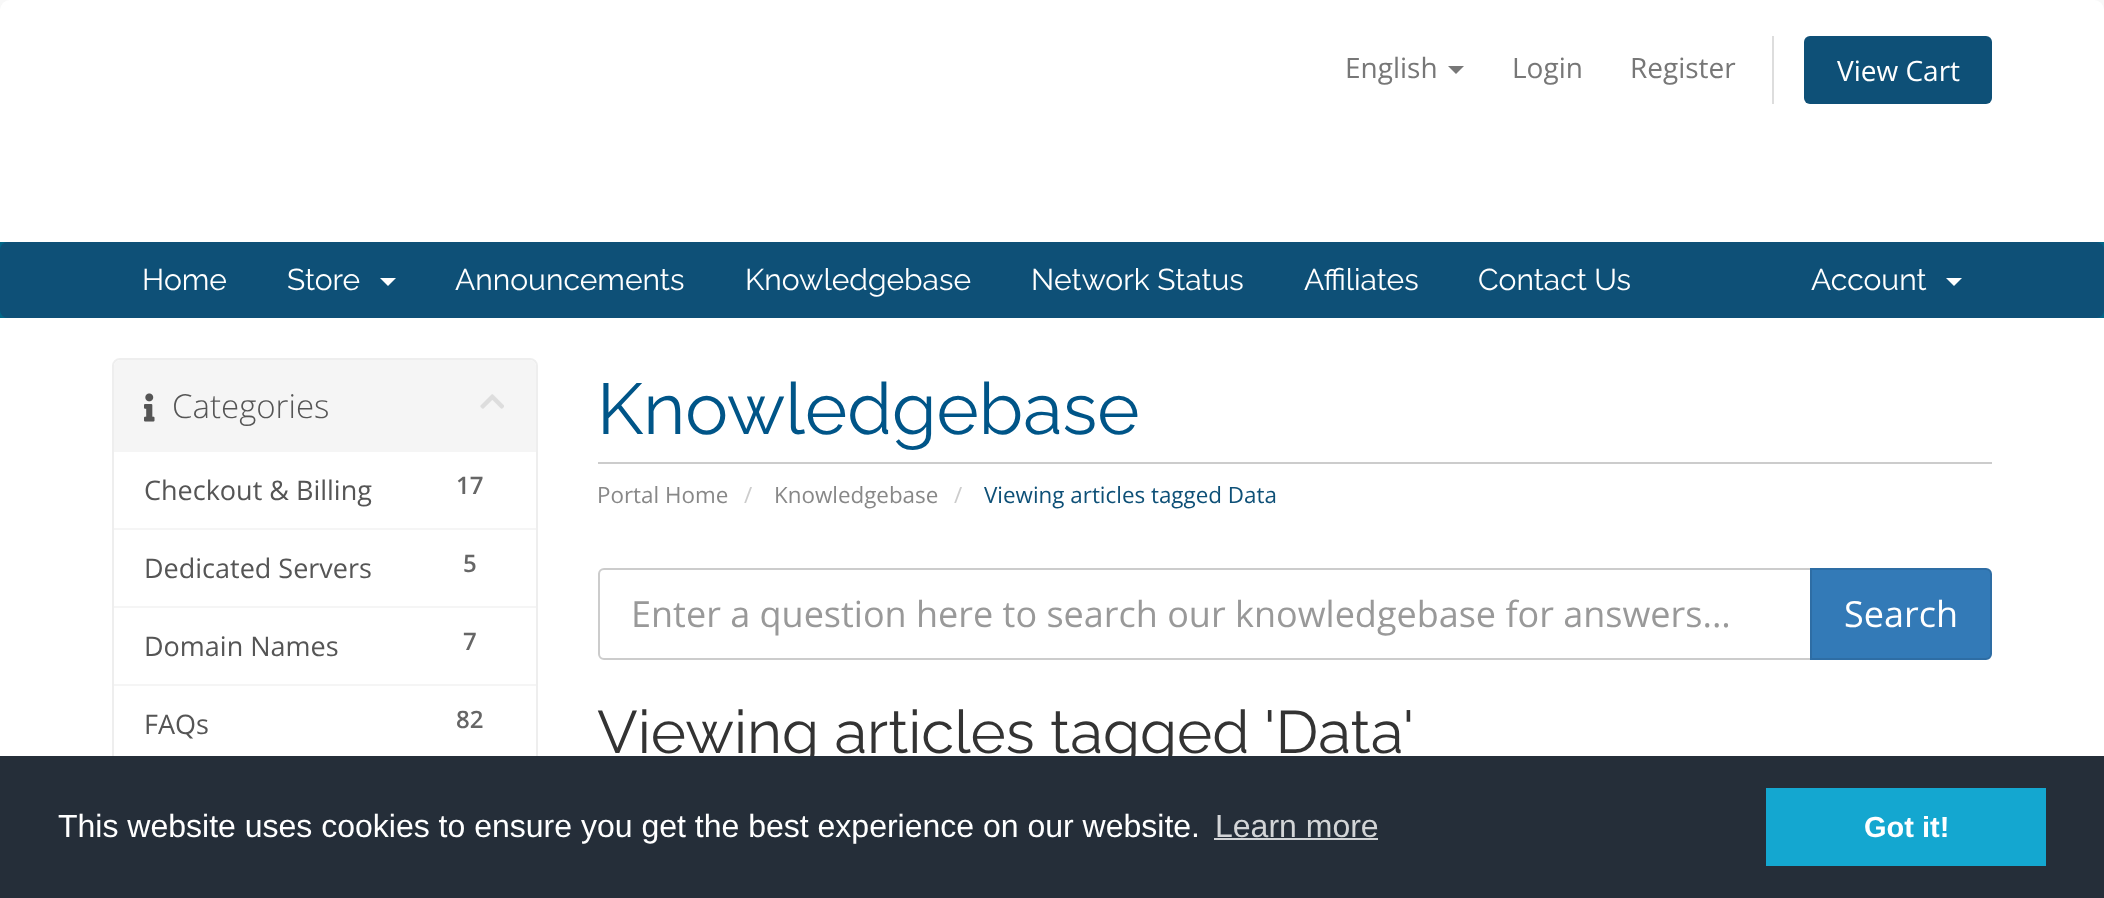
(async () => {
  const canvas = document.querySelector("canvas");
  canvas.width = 2104;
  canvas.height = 898;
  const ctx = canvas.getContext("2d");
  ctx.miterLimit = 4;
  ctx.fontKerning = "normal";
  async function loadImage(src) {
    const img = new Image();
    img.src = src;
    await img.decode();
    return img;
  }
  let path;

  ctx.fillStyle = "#f8f8f8";
  ctx.fillRect(0, 0, 2104, 898);
  ctx.fillStyle = "#ffffff";
  ctx.beginPath();
  ctx.roundRect(0, 0, 2104, 242, [10, 10, 0, 0]);
  ctx.fill();
  ctx.fillStyle = "#777777";
  path = new Path2D("M1448 66H1464L1456 74Z");
  ctx.fill(path);
  ctx.fillStyle = "#dddddd";
  ctx.fillRect(1772, 36, 2, 68);
  ctx.fillStyle = "#0e5077";
  ctx.beginPath();
  ctx.roundRect(1804, 36, 188, 68, 6);
  ctx.fill();
  ctx.fillStyle = "#006687";
  ctx.fillRect(0, 242, 2104, 76);
  ctx.fillStyle = "#0e5077";
  ctx.beginPath();
  ctx.roundRect(0, 242, 2104, 76, 8);
  ctx.fill();
  ctx.fillStyle = "#ffffff";
  path = new Path2D("M380 278H396L388 286Z");
  ctx.fill(path);
  path = new Path2D("M1946 278H1962L1954 286Z");
  ctx.fill(path);
  ctx.fillRect(0, 318, 2104, 438);
  ctx.beginPath();
  ctx.roundRect(113, 359, 424, 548, 7);
  ctx.strokeStyle = "#eeeeee";
  ctx.lineWidth = 2;
  ctx.stroke();
  ctx.fillStyle = "#f5f5f5";
  ctx.beginPath();
  ctx.roundRect(114, 360, 422, 92, [6, 6, 0, 0]);
  ctx.fill();
  ctx.drawImage(await loadImage("img/1.png"), 144, 393, 11, 29);
  ctx.drawImage(await loadImage("img/2.png"), 480, 394, 24, 15);
  for (const [x, y, w, h, color] of [
    [114, 528, 422, 2, "#f5f5f5"],
    [114, 606, 422, 2, "#f5f5f5"],
    [114, 684, 422, 2, "#f5f5f5"],
    [598, 462, 1394, 2, "#cccccc"],
  ]) {
    ctx.fillStyle = color;
    ctx.fillRect(x, y, w, h);
  }
  ctx.beginPath();
  ctx.roundRect(599, 569, 1212, 90, [5, 0, 0, 5]);
  ctx.strokeStyle = "#cccccc";
  ctx.stroke();
  ctx.fillStyle = "#337ab7";
  ctx.beginPath();
  ctx.roundRect(1811, 569, 180, 90, [0, 5, 5, 0]);
  ctx.fill();
  ctx.strokeStyle = "#2e6da4";
  ctx.stroke();
  ctx.font = "28px Open Sans";
  ctx.fillStyle = "#777777";
  for (const [text, x, y] of [
    ["English", 1345, 78],
    ["Login", 1512, 78],
    ["Register", 1630, 78],
  ]) {
    ctx.fillText(text, x, y);
  }
  ctx.fillStyle = "#ffffff";
  ctx.fillText("View Cart", 1837, 81);
  ctx.font = "30px Raleway";
  for (const [text, x, y] of [
    ["Home", 142, 290],
    ["Store", 287, 290],
    ["Announcements", 455, 290],
    ["Knowledgebase", 745, 290],
    ["Network Status", 1031, 290],
    ["Affiliates", 1304, 290],
    ["Contact Us", 1478, 290],
    ["Account", 1811, 290],
  ]) {
    ctx.fillText(text, x, y);
  }
  ctx.font = "300 33px Open Sans";
  ctx.fillStyle = "#555555";
  ctx.fillText("Categories", 172, 418);
  ctx.font = "27px Open Sans";
  ctx.fillText("Checkout & Billing", 144, 500);
  ctx.font = "600 24px Open Sans";
  ctx.fillStyle = "#666666";
  ctx.fillText("17", 456, 494);
  ctx.font = "27px Open Sans";
  ctx.fillStyle = "#555555";
  ctx.fillText("Dedicated Servers", 144, 578);
  ctx.font = "600 24px Open Sans";
  ctx.fillStyle = "#666666";
  ctx.fillText("5", 463, 572);
  ctx.font = "27px Open Sans";
  ctx.fillStyle = "#555555";
  ctx.fillText("Domain Names", 144, 656);
  ctx.font = "600 24px Open Sans";
  ctx.fillStyle = "#666666";
  ctx.fillText("7", 463, 650);
  ctx.font = "27px Open Sans";
  ctx.fillStyle = "#555555";
  ctx.fillText("FAQs", 144, 734);
  ctx.font = "600 24px Open Sans";
  ctx.fillStyle = "#666666";
  ctx.fillText("82", 456, 728);
  ctx.font = "72px Raleway";
  ctx.fillStyle = "#005588";
  ctx.fillText("Knowledgebase", 597, 434);
  ctx.font = "22.4px Open Sans";
  ctx.fillStyle = "#888888";
  ctx.fillText("Portal Home", 597, 503);
  ctx.fillStyle = "#cccccc";
  ctx.fillText("/", 744, 503);
  ctx.fillStyle = "#888888";
  ctx.fillText("Knowledgebase", 774, 503);
  ctx.fillStyle = "#cccccc";
  ctx.fillText("/", 954, 503);
  ctx.fillStyle = "#0e5077";
  ctx.fillText("Viewing articles tagged Data", 984, 503);
  ctx.font = "36px Open Sans";
  ctx.fillStyle = "#999999";
  ctx.fillText("Enter a question here to search our knowledgebase for answers...", 631, 627);
  ctx.fillStyle = "#ffffff";
  ctx.fillText("Search", 1844, 627);
  ctx.font = "60px Raleway";
  ctx.fillStyle = "#333333";
  ctx.fillText("Viewing articles tagged 'Data'", 597, 753);
  ctx.fillStyle = "#252e39";
  ctx.fillRect(0, 756, 2104, 142);
  ctx.font = "32px Liberation Sans";
  ctx.fillStyle = "#ffffff";
  ctx.fillText("This website uses cookies to ensure you get the best experience on our website.", 58, 837);
  ctx.fillStyle = "#d3d5d7";
  ctx.fillText("Learn more", 1215, 837);
  ctx.fillRect(1214, 838, 164, 2);
  ctx.fillStyle = "#14a7d0";
  ctx.fillRect(1766, 788, 280, 78);
  ctx.font = "bold 29px Liberation Sans";
  ctx.fillStyle = "#ffffff";
  ctx.fillText("Got it!", 1864, 837);
})();
